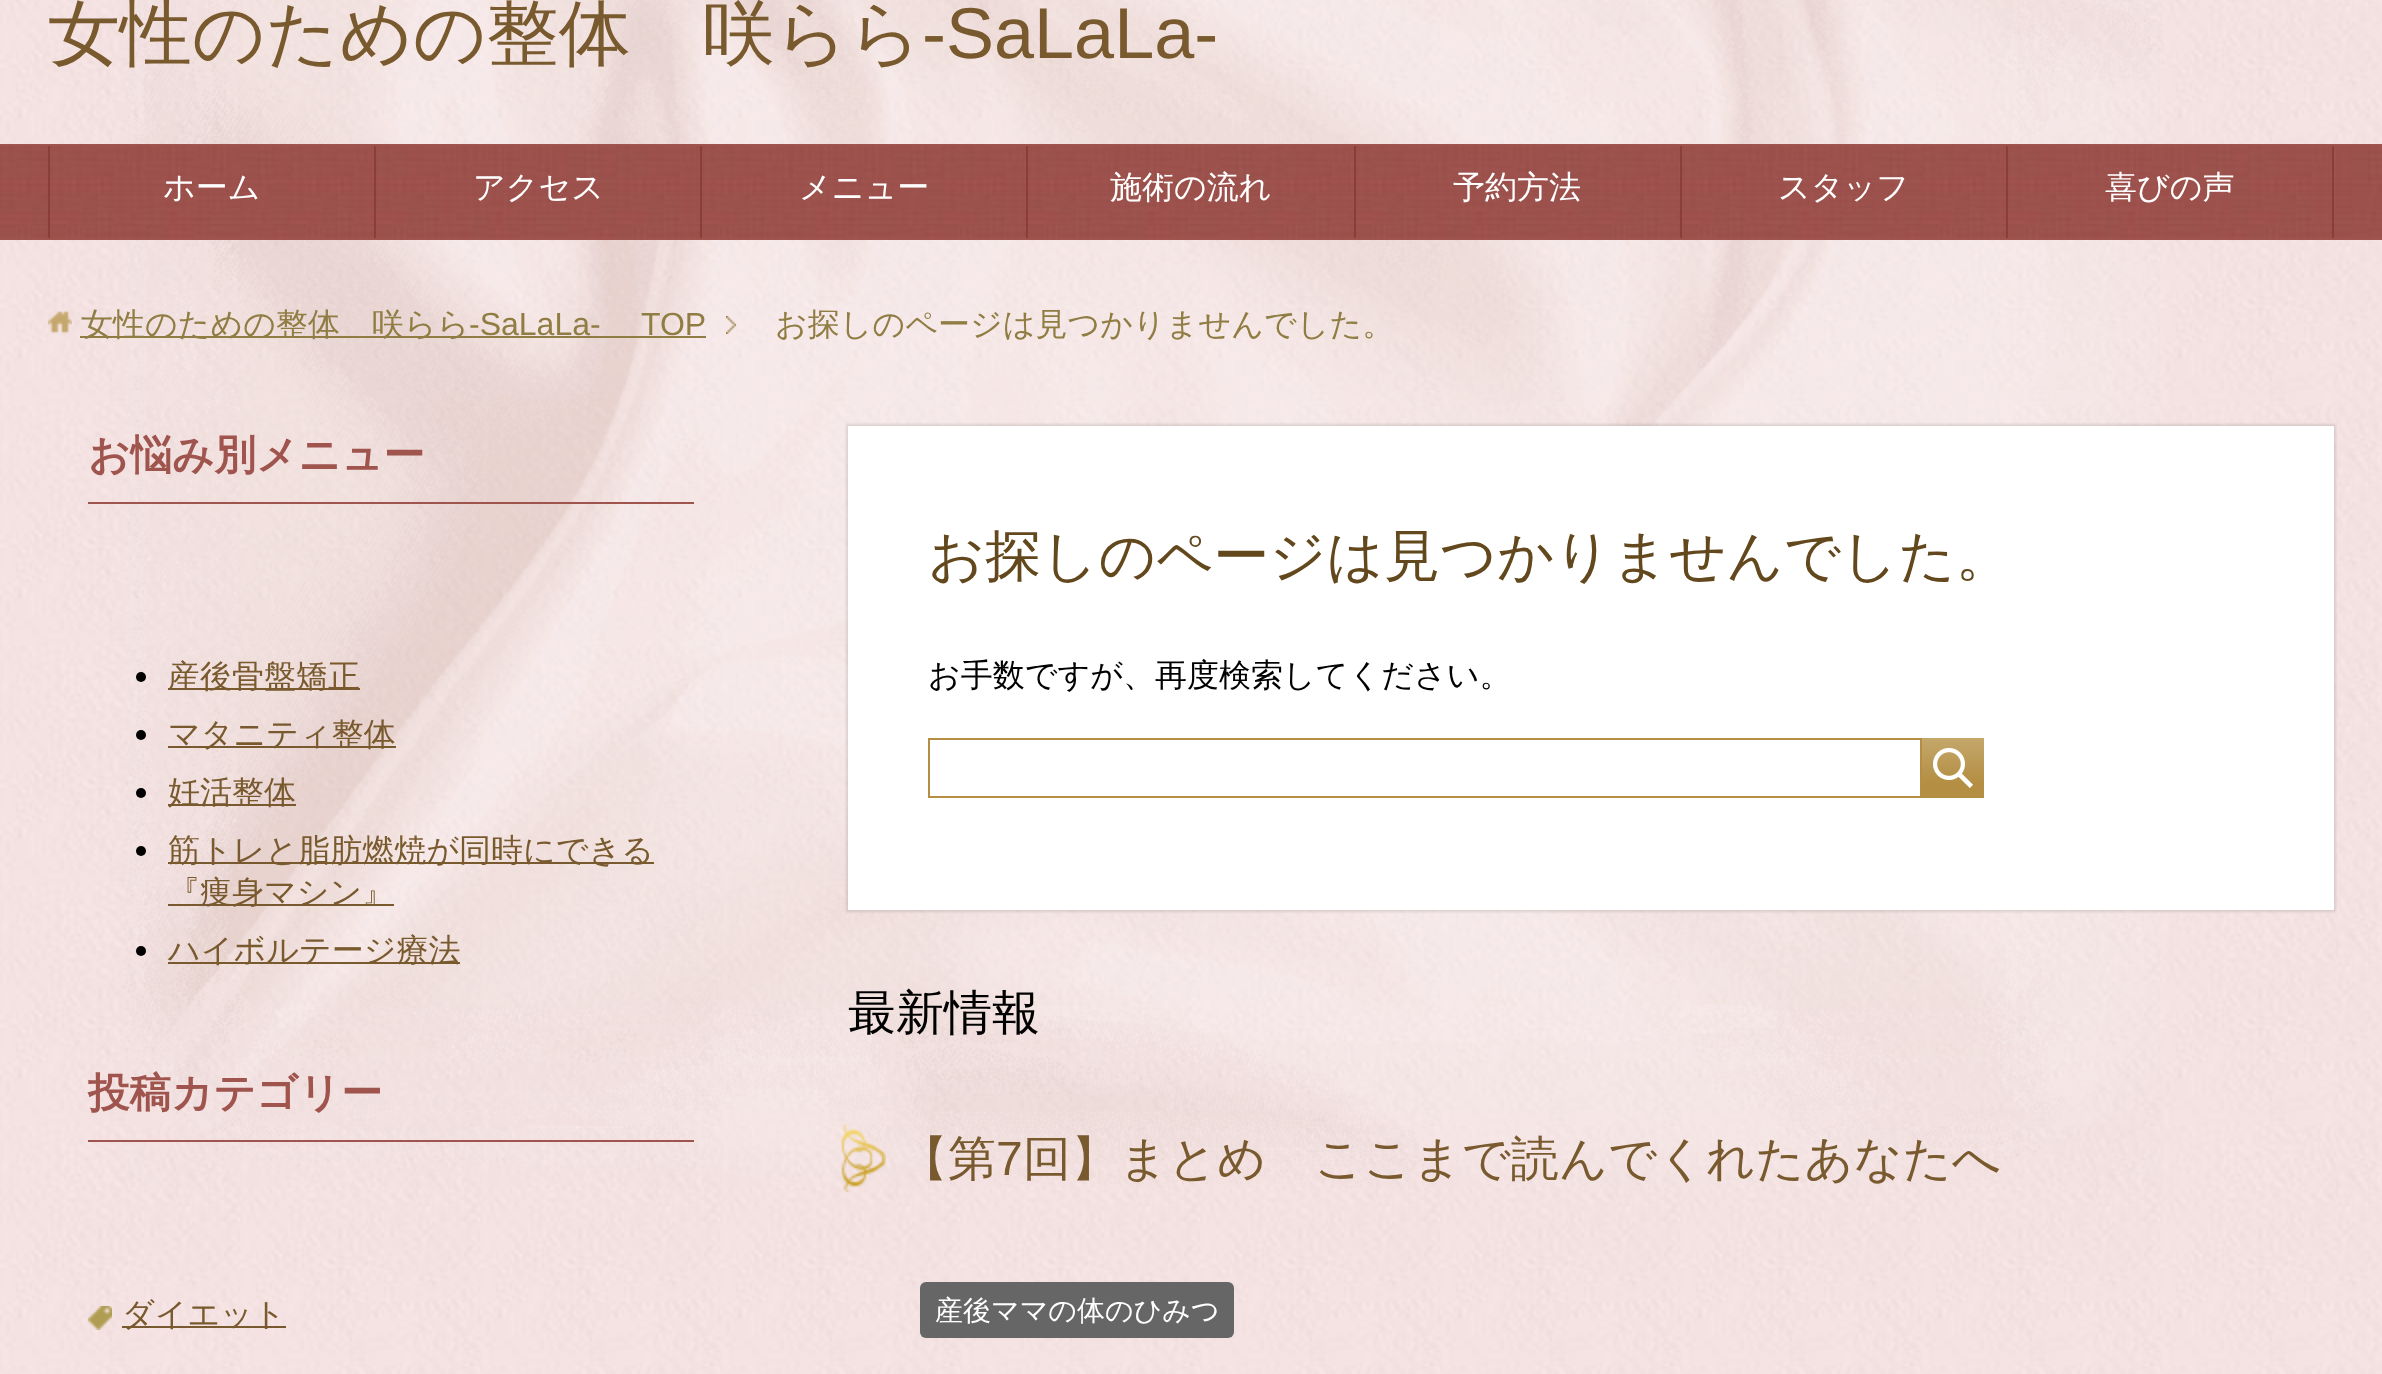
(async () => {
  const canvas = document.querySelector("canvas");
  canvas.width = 2382;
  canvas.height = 1374;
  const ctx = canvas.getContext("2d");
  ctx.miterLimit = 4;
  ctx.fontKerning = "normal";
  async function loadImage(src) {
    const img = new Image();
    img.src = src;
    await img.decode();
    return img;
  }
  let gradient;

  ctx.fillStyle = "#ffffff";
  ctx.fillRect(0, 0, 2382, 1374);
  ctx.drawImage(await loadImage("img/1.png"), 0, 0, 2382, 1374);
  ctx.drawImage(await loadImage("img/2.png"), 120, 0, 2044, 1188);
  ctx.drawImage(await loadImage("img/3.png"), 0, 146, 2382, 92);
  for (const [x, y, w, h, color] of [
    [0, 144, 2382, 2, "#a0544e"],
    [0, 238, 2382, 2, "#a0544e"],
    [48, 146, 2, 92, "#893f38"],
  ]) {
    ctx.fillStyle = color;
    ctx.fillRect(x, y, w, h);
  }
  ctx.drawImage(await loadImage("img/4.png"), 50, 146, 324, 92);
  ctx.fillRect(374, 146, 2, 92);
  ctx.drawImage(await loadImage("img/4.png"), 376, 146, 324, 92);
  ctx.fillRect(700, 146, 2, 92);
  ctx.drawImage(await loadImage("img/4.png"), 702, 146, 324, 92);
  ctx.fillRect(1026, 146, 2, 92);
  ctx.drawImage(await loadImage("img/5.png"), 1028, 146, 326, 92);
  ctx.fillRect(1354, 146, 2, 92);
  ctx.drawImage(await loadImage("img/4.png"), 1356, 146, 324, 92);
  ctx.fillRect(1680, 146, 2, 92);
  ctx.drawImage(await loadImage("img/4.png"), 1682, 146, 324, 92);
  ctx.fillRect(2006, 146, 2, 92);
  ctx.drawImage(await loadImage("img/4.png"), 2008, 146, 324, 92);
  ctx.fillRect(2332, 146, 2, 92);
  ctx.drawImage(await loadImage("img/6.png"), 726, 316, 10, 18);
  ctx.drawImage(await loadImage("img/7.png"), 48, 310, 24, 24);
  ctx.fillStyle = "#907d43";
  ctx.fillRect(80, 336, 626, 2);
  ctx.fillStyle = "#a0544e";
  ctx.fillRect(88, 502, 606, 2);
  ctx.fillStyle = "#000000";
  ctx.beginPath();
  ctx.arc(141, 677, 5, 0, Math.PI * 2);
  ctx.fill();
  ctx.fillStyle = "#795a2e";
  ctx.fillRect(168, 688, 192, 2);
  ctx.fillStyle = "#000000";
  ctx.beginPath();
  ctx.arc(141, 735, 5, 0, Math.PI * 2);
  ctx.fill();
  ctx.fillStyle = "#795a2e";
  ctx.fillRect(168, 746, 228, 2);
  ctx.fillStyle = "#000000";
  ctx.beginPath();
  ctx.arc(141, 793, 5, 0, Math.PI * 2);
  ctx.fill();
  ctx.fillStyle = "#795a2e";
  ctx.fillRect(168, 804, 128, 2);
  ctx.fillStyle = "#000000";
  ctx.beginPath();
  ctx.arc(141, 851, 5, 0, Math.PI * 2);
  ctx.fill();
  ctx.fillStyle = "#795a2e";
  ctx.fillRect(168, 862, 486, 2);
  ctx.fillRect(168, 904, 226, 2);
  ctx.fillStyle = "#000000";
  ctx.beginPath();
  ctx.arc(141, 951, 5, 0, Math.PI * 2);
  ctx.fill();
  ctx.fillStyle = "#795a2e";
  ctx.fillRect(168, 962, 292, 2);
  ctx.fillStyle = "#a0544e";
  ctx.fillRect(88, 1140, 606, 2);
  ctx.drawImage(await loadImage("img/8.png"), 88, 1306, 24, 24);
  ctx.fillStyle = "#795a2e";
  ctx.fillRect(122, 1326, 164, 2);
  ctx.fillStyle = "rgba(0, 0, 0, 0.1)";
  ctx.filter = "blur(1px)";
  ctx.beginPath();
  ctx.rect(846, 424, 1490, 488);
  ctx.fill();
  ctx.filter = "none";
  ctx.fillStyle = "#ffffff";
  ctx.fillRect(848, 426, 1486, 484);
  ctx.strokeStyle = "#b48f43";
  ctx.lineWidth = 2;
  ctx.strokeRect(929, 739, 992, 58);
  gradient = ctx.createLinearGradient(1953, 738, 1953, 798);
  gradient.addColorStop(0, "#c4a76b");
  gradient.addColorStop(0.75, "#b48f43");
  ctx.fillStyle = gradient;
  ctx.fillRect(1922, 738, 62, 60);
  ctx.drawImage(await loadImage("img/9.png"), 1933, 748, 40, 40);
  ctx.drawImage(await loadImage("img/10.png"), 840, 1124, 46, 68);
  ctx.fillStyle = "#666666";
  ctx.beginPath();
  ctx.roundRect(920, 1282, 314, 56, 6);
  ctx.fill();
  ctx.font = "500 72px WenQuanYi Zen Hei";
  ctx.fillStyle = "#795a2e";
  ctx.fillText("女性のための整体　咲らら", 48, 58);
  ctx.font = "72px Liberation Sans";
  ctx.fillText("-SaLaLa-", 922, 58);
  ctx.font = "500 32px WenQuanYi Zen Hei";
  ctx.fillStyle = "#ffffff";
  for (const [text, x, y] of [
    ["ホーム", 163, 198],
    ["アクセス", 473, 198],
    ["メニュー", 799, 198],
    ["施術の流れ", 1110, 198],
    ["予約方法", 1453, 198],
    ["スタッフ", 1778, 198],
    ["喜びの声", 2105, 198],
  ]) {
    ctx.fillText(text, x, y);
  }
  ctx.fillStyle = "#907d43";
  ctx.fillText("女性のための整体　咲らら", 81, 335);
  ctx.font = "32px Liberation Sans";
  ctx.fillText("-SaLaLa-", 469, 335);
  ctx.fillText("TOP", 641, 335);
  ctx.font = "500 32px WenQuanYi Zen Hei";
  ctx.fillText("お探しのページは見つかりませんでした。", 775, 335);
  ctx.font = "bold 41.5px WenQuanYi Zen Hei";
  ctx.fillStyle = "#a0544e";
  ctx.fillText("お悩み別メニュー", 88, 469);
  ctx.font = "500 32px WenQuanYi Zen Hei";
  ctx.fillStyle = "#795a2e";
  for (const [text, x, y] of [
    ["産後骨盤矯正", 168, 687],
    ["マタニティ整体", 168, 745],
    ["妊活整体", 168, 803],
    ["筋トレと脂肪燃焼が同時にできる", 168, 861],
    ["『痩身マシン』", 168, 903],
    ["ハイボルテージ療法", 168, 961],
  ]) {
    ctx.fillText(text, x, y);
  }
  ctx.font = "bold 41.5px WenQuanYi Zen Hei";
  ctx.fillStyle = "#a0544e";
  ctx.fillText("投稿カテゴリー", 88, 1107);
  ctx.font = "500 32px WenQuanYi Zen Hei";
  ctx.fillStyle = "#795a2e";
  ctx.fillText("ダイエット", 122, 1325);
  ctx.font = "500 56px WenQuanYi Zen Hei";
  ctx.fillStyle = "#62481c";
  ctx.fillText("お探しのページは見つかりませんでした。", 928, 575);
  ctx.font = "500 32px WenQuanYi Zen Hei";
  ctx.fillStyle = "#000000";
  ctx.fillText("お手数ですが、再度検索してください。", 928, 686);
  ctx.font = "500 48px WenQuanYi Zen Hei";
  ctx.fillText("最新情報", 848, 1029);
  ctx.fillStyle = "#795a2e";
  ctx.fillText("【第", 900, 1175);
  ctx.font = "48px Liberation Sans";
  ctx.fillText("7", 996, 1175);
  ctx.font = "500 48px WenQuanYi Zen Hei";
  ctx.fillText("回】まとめ　ここまで読んでくれたあなたへ", 1023, 1175);
  ctx.font = "500 28px WenQuanYi Zen Hei";
  ctx.fillStyle = "#ffffff";
  ctx.fillText("産後ママの体のひみつ", 935, 1320);
})();
